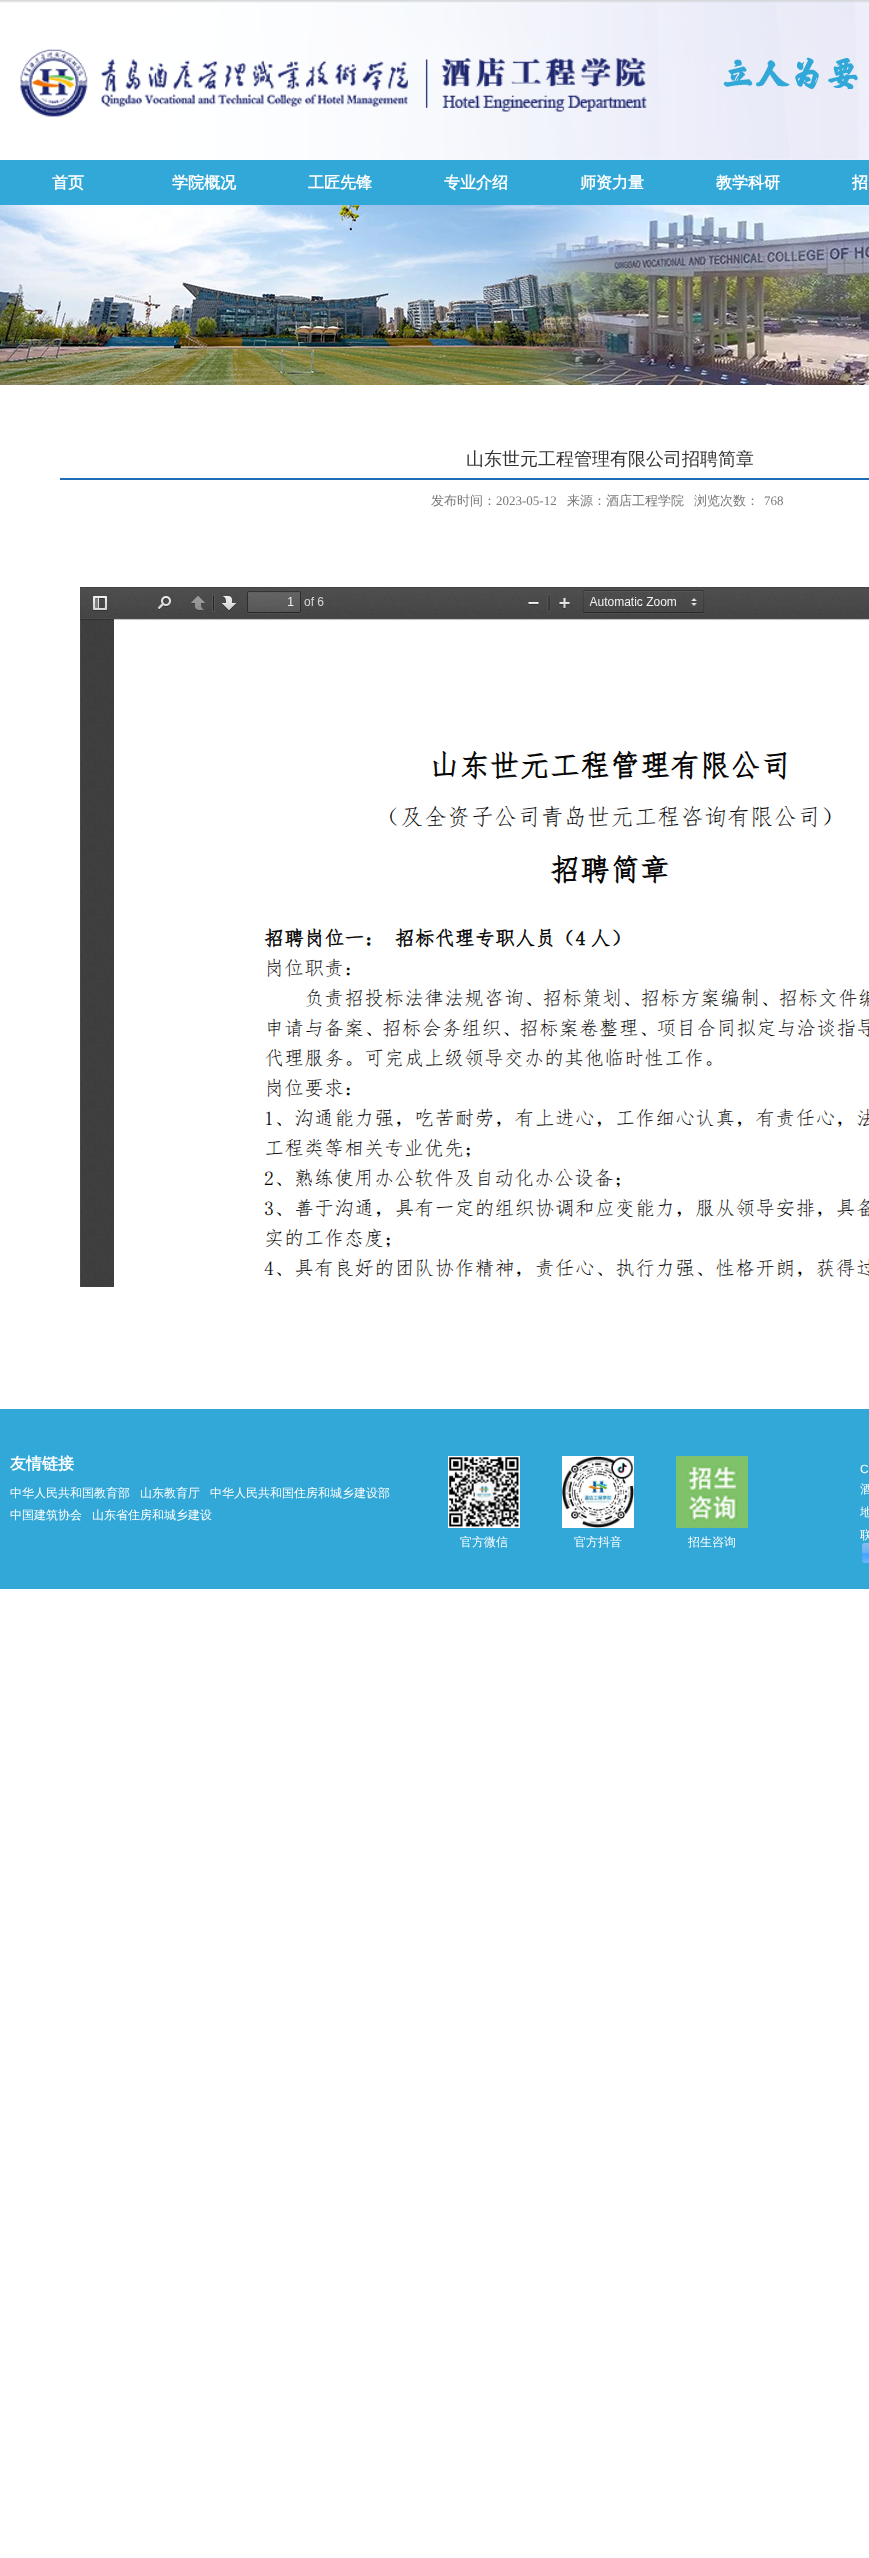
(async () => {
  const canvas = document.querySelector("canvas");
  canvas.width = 869;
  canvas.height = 2558;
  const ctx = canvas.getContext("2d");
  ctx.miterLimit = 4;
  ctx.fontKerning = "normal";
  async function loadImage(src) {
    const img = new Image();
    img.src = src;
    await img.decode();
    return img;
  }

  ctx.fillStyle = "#ffffff";
  ctx.fillRect(0, 0, 869, 2558);
  ctx.drawImage(await loadImage("img/1.png"), 0, 0, 869, 160);
  ctx.drawImage(await loadImage("img/2.png"), 20, 49, 627, 68);
  ctx.drawImage(await loadImage("img/3.png"), 723, 57, 135, 32);
  ctx.fillStyle = "#32a8d8";
  ctx.fillRect(0, 160, 869, 45);
  ctx.drawImage(await loadImage("img/4.png"), 0, 205, 869, 180);
  ctx.fillStyle = "#1c6cb6";
  ctx.fillRect(60, 478, 809, 2);
  ctx.drawImage(await loadImage("img/5.png"), 80, 587, 789, 700);
  ctx.fillStyle = "#32a8d8";
  ctx.fillRect(0, 1409, 869, 180);
  ctx.drawImage(await loadImage("img/6.png"), 448, 1456, 72, 72);
  ctx.drawImage(await loadImage("img/7.png"), 562, 1456, 72, 72);
  ctx.drawImage(await loadImage("img/8.png"), 676, 1456, 72, 72);
  ctx.drawImage(await loadImage("img/9.png"), 862, 1543, 7, 20);
  ctx.font = "bold 16px WenQuanYi Zen Hei";
  ctx.fillStyle = "#ffffff";
  for (const [text, x, y] of [
    ["首页", 52, 188],
    ["学院概况", 172, 188],
    ["工匠先锋", 308, 188],
    ["专业介绍", 444, 188],
    ["师资力量", 580, 188],
    ["教学科研", 716, 188],
    ["招", 852, 188],
  ]) {
    ctx.fillText(text, x, y);
  }
  ctx.font = "500 18px WenQuanYi Zen Hei";
  ctx.fillStyle = "#333333";
  ctx.fillText("山东世元工程管理有限公司招聘简章", 466, 465);
  ctx.font = "500 13px WenQuanYi Zen Hei";
  ctx.fillStyle = "#787878";
  ctx.fillText("发布时间：", 431, 505);
  ctx.font = "13px Liberation Serif";
  ctx.fillText("2023-05-12", 496, 505);
  ctx.font = "500 13px WenQuanYi Zen Hei";
  ctx.fillText("来源：酒店工程学院", 567, 505);
  ctx.fillText("浏览次数：", 694, 505);
  ctx.font = "13px Liberation Serif";
  ctx.fillText("768", 764, 505);
  ctx.font = "bold 16px WenQuanYi Zen Hei";
  ctx.fillStyle = "#ffffff";
  ctx.fillText("友情链接", 10, 1469);
  ctx.font = "500 12px WenQuanYi Zen Hei";
  for (const [text, x, y] of [
    ["中华人民共和国教育部", 10, 1497],
    ["山东教育厅", 140, 1497],
    ["中华人民共和国住房和城乡建设部", 210, 1497],
    ["中国建筑协会", 10, 1519],
    ["山东省住房和城乡建设", 92, 1519],
    ["官方微信", 460, 1546],
    ["官方抖音", 574, 1546],
    ["招生咨询", 688, 1546],
  ]) {
    ctx.fillText(text, x, y);
  }
  ctx.font = "12px Liberation Sans";
  ctx.fillText("C", 860, 1473);
  ctx.font = "500 12px WenQuanYi Zen Hei";
  for (const [text, x, y] of [
    ["酒", 860, 1493],
    ["地", 860, 1516],
    ["联", 860, 1539],
  ]) {
    ctx.fillText(text, x, y);
  }
})();
